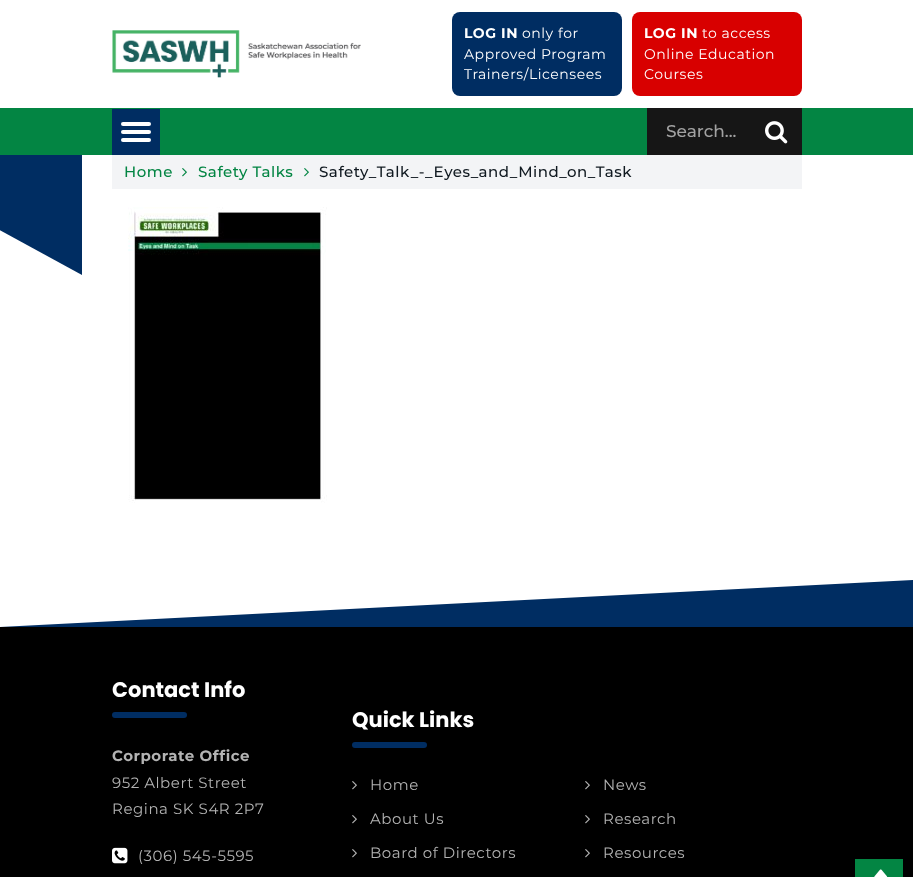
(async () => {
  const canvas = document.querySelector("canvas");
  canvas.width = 913;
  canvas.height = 877;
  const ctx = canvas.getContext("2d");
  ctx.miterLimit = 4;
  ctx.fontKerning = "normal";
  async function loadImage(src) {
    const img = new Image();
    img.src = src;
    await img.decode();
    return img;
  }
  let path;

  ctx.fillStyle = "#ffffff";
  ctx.fillRect(0, 0, 913, 877);
  ctx.drawImage(await loadImage("img/1.png"), 112, 30, 249, 48);
  ctx.fillStyle = "#002d62";
  ctx.beginPath();
  ctx.roundRect(452, 12, 170, 84, 8);
  ctx.fill();
  ctx.fillStyle = "#d80000";
  ctx.beginPath();
  ctx.roundRect(632, 12, 170, 84, 8);
  ctx.fill();
  ctx.fillStyle = "#038543";
  ctx.fillRect(0, 108, 913, 47);
  ctx.fillStyle = "#002d62";
  ctx.fillRect(112, 109, 48, 46);
  ctx.fillStyle = "#ffffff";
  ctx.beginPath();
  ctx.roundRect(121, 122, 30, 4, 2);
  ctx.fill();
  ctx.beginPath();
  ctx.roundRect(121, 130, 30, 4, 2);
  ctx.fill();
  ctx.beginPath();
  ctx.roundRect(121, 138, 30, 4, 2);
  ctx.fill();
  ctx.fillStyle = "#161616";
  ctx.fillRect(647, 108, 155, 47);
  ctx.drawImage(await loadImage("img/2.png"), 765, 121, 23, 23);
  ctx.fillStyle = "#002d62";
  path = new Path2D("M-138 155H82V275Z");
  ctx.fill(path);
  ctx.fillStyle = "#f3f4f6";
  ctx.fillRect(112, 155, 690, 34);
  ctx.drawImage(await loadImage("img/3.png"), 182, 168, 5, 9);
  ctx.drawImage(await loadImage("img/3.png"), 304, 168, 5, 9);
  ctx.drawImage(await loadImage("img/4.png"), 128, 207, 199, 296);
  ctx.fillStyle = "#002d62";
  path = new Path2D("M-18 628H913V580Z");
  ctx.fill(path);
  ctx.fillStyle = "#000000";
  ctx.fillRect(0, 627, 913, 250);
  ctx.fillStyle = "#002d62";
  ctx.beginPath();
  ctx.roundRect(112, 712, 75, 6, 3);
  ctx.fill();
  ctx.drawImage(await loadImage("img/5.png"), 112, 847, 16, 17);
  ctx.beginPath();
  ctx.roundRect(352, 742, 75, 6, 3);
  ctx.fill();
  ctx.drawImage(await loadImage("img/6.png"), 352, 781, 5, 9);
  ctx.drawImage(await loadImage("img/6.png"), 585, 781, 5, 9);
  ctx.drawImage(await loadImage("img/6.png"), 352, 815, 5, 9);
  ctx.drawImage(await loadImage("img/6.png"), 585, 815, 5, 9);
  ctx.drawImage(await loadImage("img/6.png"), 352, 849, 5, 9);
  ctx.drawImage(await loadImage("img/6.png"), 585, 849, 5, 9);
  ctx.fillStyle = "#038543";
  ctx.fillRect(855, 859, 48, 18);
  ctx.drawImage(await loadImage("img/7.png"), 874, 869, 14, 8);
  ctx.letterSpacing = "0.55px";
  ctx.font = "bold 14px Montserrat";
  ctx.fillStyle = "#ffffff";
  ctx.fillText("LOG IN", 464, 38);
  ctx.font = "14px Montserrat";
  for (const [text, x, y] of [
    ["only for", 522, 38],
    ["Approved Program", 464, 59],
    ["Trainers/Licensees", 464, 79],
  ]) {
    ctx.fillText(text, x, y);
  }
  ctx.font = "bold 14px Montserrat";
  ctx.fillText("LOG IN", 644, 38);
  ctx.font = "14px Montserrat";
  for (const [text, x, y] of [
    ["to access", 702, 38],
    ["Online Education", 644, 59],
    ["Courses", 644, 79],
  ]) {
    ctx.fillText(text, x, y);
  }
  ctx.letterSpacing = "0px";
  ctx.font = "500 17px Montserrat";
  ctx.fillStyle = "#a2a2a2";
  ctx.fillText("Search...", 666, 137);
  ctx.letterSpacing = "0.55px";
  ctx.font = "500 15px Montserrat";
  ctx.fillStyle = "#038543";
  ctx.fillText("Home", 124, 177);
  ctx.fillText("Safety Talks", 198, 177);
  ctx.fillStyle = "#101920";
  ctx.fillText("Safety_Talk_-_Eyes_and_Mind_on_Task", 319, 177);
  ctx.letterSpacing = "0px";
  ctx.font = "bold 21px Poppins";
  ctx.fillStyle = "#ffffff";
  ctx.fillText("Contact Info", 112, 697);
  ctx.letterSpacing = "0.55px";
  ctx.font = "bold 15px Montserrat";
  ctx.fillStyle = "#b3b3b3";
  ctx.fillText("Corporate Office", 112, 761);
  ctx.font = "15px Montserrat";
  for (const [text, x, y] of [
    ["952 Albert Street", 112, 788],
    ["Regina SK S4R 2P7", 112, 814],
    ["(306) 545-5595", 138, 861],
  ]) {
    ctx.fillText(text, x, y);
  }
  ctx.letterSpacing = "0px";
  ctx.font = "bold 21px Poppins";
  ctx.fillStyle = "#ffffff";
  ctx.fillText("Quick Links", 352, 727);
  ctx.letterSpacing = "0.55px";
  ctx.font = "15px Montserrat";
  ctx.fillStyle = "#b3b3b3";
  for (const [text, x, y] of [
    ["Home", 370, 790],
    ["News", 603, 790],
    ["About Us", 370, 824],
    ["Research", 603, 824],
    ["Board of Directors", 370, 858],
    ["Resources", 603, 858],
  ]) {
    ctx.fillText(text, x, y);
  }
})();
